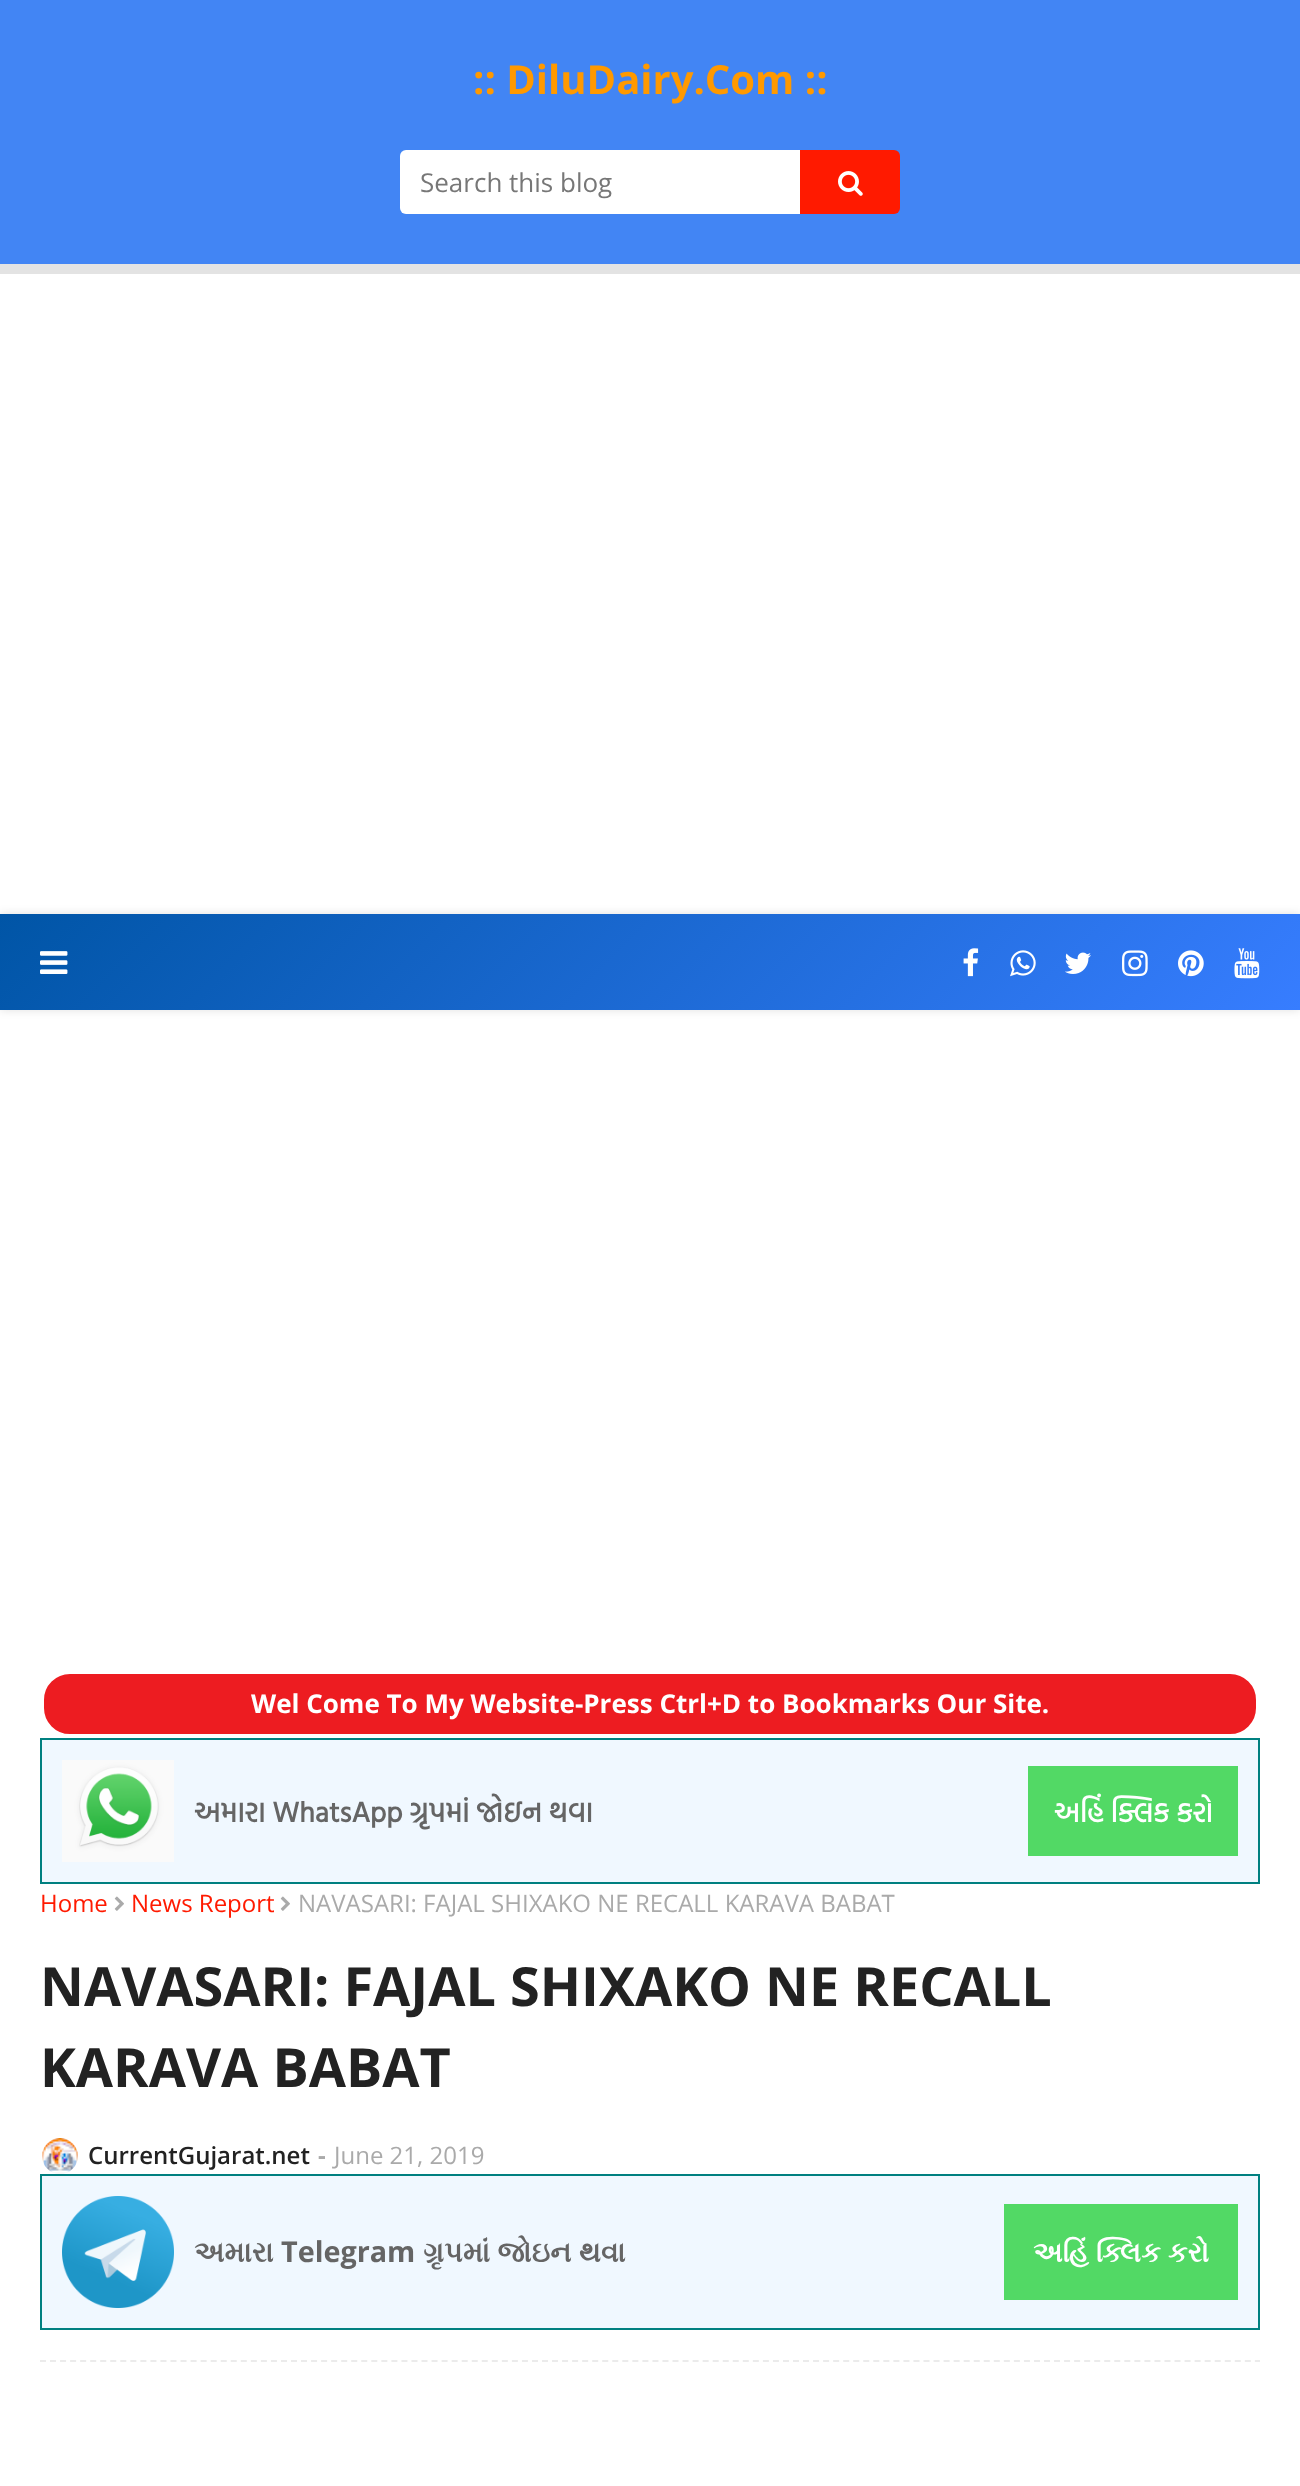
(async () => {
  const canvas = document.querySelector("canvas");
  canvas.width = 1300;
  canvas.height = 2486;
  const ctx = canvas.getContext("2d");
  ctx.miterLimit = 4;
  ctx.fontKerning = "normal";
  async function loadImage(src) {
    const img = new Image();
    img.src = src;
    await img.decode();
    return img;
  }
  let gradient, path;

  ctx.fillStyle = "#ffffff";
  ctx.fillRect(0, 0, 1300, 2486);
  ctx.fillStyle = "#4285f4";
  ctx.fillRect(0, 0, 1300, 264);
  ctx.fillStyle = "#e3e3e3";
  ctx.fillRect(0, 264, 1300, 10);
  ctx.fillStyle = "#ffffff";
  ctx.beginPath();
  ctx.roundRect(400, 150, 400, 64, [6, 0, 0, 6]);
  ctx.fill();
  ctx.fillStyle = "#ff1a00";
  ctx.beginPath();
  ctx.roundRect(800, 150, 100, 64, [0, 6, 6, 0]);
  ctx.fill();
  ctx.drawImage(await loadImage("img/1.png"), 838, 171, 25, 25);
  ctx.fillStyle = "rgba(0, 0, 0, 0.12)";
  ctx.filter = "blur(5px)";
  ctx.beginPath();
  ctx.rect(0, 914, 1300, 96);
  ctx.fill();
  ctx.filter = "none";
  gradient = ctx.createLinearGradient(301, 613, 999, 1311);
  gradient.addColorStop(0, "#0055a6");
  gradient.addColorStop(1, "#377dff");
  ctx.fillStyle = gradient;
  ctx.fillRect(0, 914, 1300, 96);
  ctx.drawImage(await loadImage("img/2.png"), 40, 951, 28, 23);
  ctx.drawImage(await loadImage("img/3.png"), 963, 948, 16, 29);
  ctx.drawImage(await loadImage("img/4.png"), 1010, 950, 26, 27);
  ctx.drawImage(await loadImage("img/5.png"), 1065, 952, 26, 22);
  ctx.drawImage(await loadImage("img/6.png"), 1122, 950, 26, 27);
  ctx.drawImage(await loadImage("img/7.png"), 1178, 950, 26, 27);
  ctx.drawImage(await loadImage("img/8.png"), 1234, 948, 26, 31);
  ctx.fillStyle = "#ed1c21";
  ctx.beginPath();
  ctx.roundRect(42, 1672, 1216, 64, 28);
  ctx.fill();
  ctx.strokeStyle = "#ffffff";
  ctx.lineWidth = 4;
  ctx.stroke();
  ctx.fillStyle = "#f0f8ff";
  ctx.beginPath();
  ctx.rect(41, 1739, 1218, 144);
  ctx.fill();
  ctx.strokeStyle = "#008080";
  ctx.lineWidth = 2;
  ctx.stroke();
  ctx.drawImage(await loadImage("img/9.png"), 62, 1760, 112, 102);
  ctx.fillStyle = "#52d965";
  ctx.fillRect(1028, 1766, 210, 90);
  ctx.drawImage(await loadImage("img/10.png"), 114, 1896, 10, 15);
  ctx.drawImage(await loadImage("img/10.png"), 280, 1896, 10, 15);
  ctx.drawImage(await loadImage("img/11.png"), 42, 2138, 36, 36);
  ctx.fillStyle = "#f0f8ff";
  ctx.beginPath();
  ctx.rect(41, 2175, 1218, 154);
  ctx.fill();
  ctx.stroke();
  ctx.drawImage(await loadImage("img/12.png"), 62, 2196, 112, 112);
  ctx.fillStyle = "#52d965";
  ctx.fillRect(1004, 2204, 234, 96);
  path = new Path2D("M40 2361H1260");
  ctx.strokeStyle = "#ebebeb";
  ctx.setLineDash([6, 4.04]);
  ctx.stroke(path);
  ctx.font = "bold 40px Open Sans";
  ctx.fillStyle = "#ff9900";
  ctx.fillText(":: DiluDairy.Com ::", 473, 94);
  ctx.font = "26px Open Sans";
  ctx.fillStyle = "#777777";
  ctx.fillText("Search this blog", 420, 192);
  ctx.font = "bold 26px Open Sans";
  ctx.fillStyle = "#ffffff";
  ctx.fillText("Wel Come To My Website-Press Ctrl+D to Bookmarks Our Site.", 251, 1713);
  ctx.font = "bold 28.75px Hind Vadodara";
  ctx.fillStyle = "#656565";
  ctx.fillText("અમારા WhatsApp ગ્રૃપમાં જોઇન થવા", 194, 1822);
  ctx.font = "bold 28px Hind Vadodara";
  ctx.fillStyle = "#ffffff";
  ctx.fillText("અહિં ક્લિક કરો", 1054, 1822);
  ctx.font = "24px Open Sans";
  ctx.fillStyle = "#ff1a00";
  ctx.fillText("Home", 40, 1912);
  ctx.fillText("News Report", 131, 1912);
  ctx.fillStyle = "#aaaaaa";
  ctx.fillText("NAVASARI: FAJAL SHIXAKO NE RECALL KARAVA BABAT", 298, 1912);
  ctx.font = "bold 54px Open Sans";
  ctx.fillStyle = "#222222";
  ctx.fillText("NAVASARI: FAJAL SHIXAKO NE RECALL", 40, 2006);
  ctx.fillText("KARAVA BABAT", 40, 2087);
  ctx.font = "600 24px Open Sans";
  ctx.fillText("CurrentGujarat.net", 88, 2164);
  ctx.font = "bold 24px Open Sans";
  ctx.fillStyle = "#aaaaaa";
  ctx.fillText("-", 318, 2164);
  ctx.font = "24px Open Sans";
  ctx.fillText("June 21, 2019", 334, 2164);
  ctx.font = "bold 28.75px FreeSerif";
  ctx.fillStyle = "#656565";
  ctx.fillText("અમારા", 194, 2262);
  ctx.font = "bold 28.75px Open Sans";
  ctx.fillText("Telegram", 281, 2262);
  ctx.font = "bold 28.75px FreeSerif";
  ctx.fillText("ગ્રૃપમાં જોઇન થવા", 423, 2262);
  ctx.font = "bold 28px FreeSerif";
  ctx.fillStyle = "#ffffff";
  ctx.fillText("અહિં ક્લિક કરો", 1033, 2262);
})();
